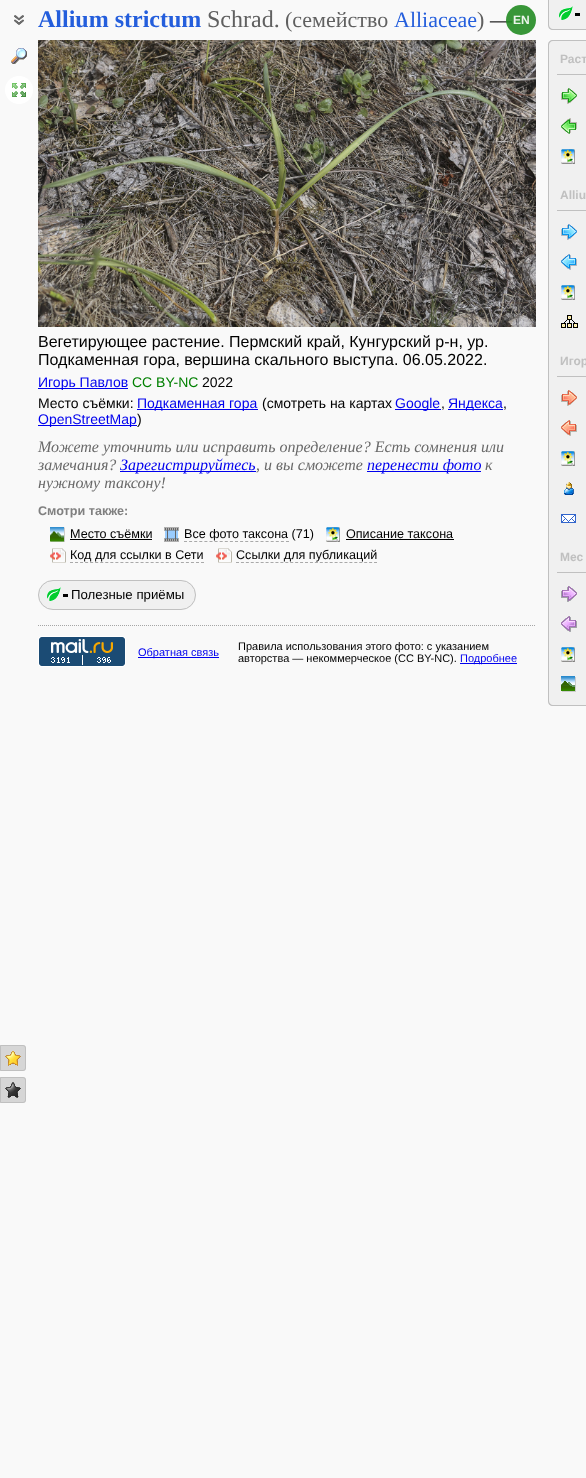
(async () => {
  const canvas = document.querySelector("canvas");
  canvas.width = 586;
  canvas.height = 1478;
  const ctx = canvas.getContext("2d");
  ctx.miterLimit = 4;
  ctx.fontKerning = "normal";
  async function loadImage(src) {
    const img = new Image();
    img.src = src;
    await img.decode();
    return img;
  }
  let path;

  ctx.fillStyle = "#f9f9f9";
  ctx.fillRect(0, 0, 586, 1478);
  ctx.drawImage(await loadImage("img/1.png"), 14, 15, 10, 10);
  ctx.drawImage(await loadImage("img/2.png"), 11, 48, 16, 16);
  ctx.fillStyle = "#ffffff";
  ctx.beginPath();
  ctx.arc(19, 90, 14, 0, Math.PI * 2);
  ctx.fill();
  ctx.drawImage(await loadImage("img/3.png"), 12, 83, 14, 14);
  ctx.fillStyle = "#d6d6d6";
  ctx.beginPath();
  ctx.roundRect(0, 1045, 26, 26, [0, 3, 3, 0]);
  ctx.fill();
  ctx.drawImage(await loadImage("img/4.png"), 5, 1051, 16, 15);
  ctx.beginPath();
  ctx.roundRect(0.5, 1045.5, 25, 25, [0, 2.5, 2.5, 0]);
  ctx.strokeStyle = "#c0c0c0";
  ctx.stroke();
  ctx.beginPath();
  ctx.roundRect(0, 1077, 26, 26, [0, 3, 3, 0]);
  ctx.fill();
  ctx.drawImage(await loadImage("img/5.png"), 5, 1082, 16, 16);
  ctx.beginPath();
  ctx.roundRect(0.5, 1077.5, 25, 25, [0, 2.5, 2.5, 0]);
  ctx.stroke();
  ctx.drawImage(await loadImage("img/6.png"), 38, 40, 498, 287);
  for (const [x, y, w, h, color] of [
    [38, 388, 90, 1, "#0000ee"],
    [137, 409, 121, 1, "#0000ee"],
    [395, 409, 46, 1, "#0000ee"],
    [448, 409, 55, 1, "#0000ee"],
    [38, 425, 99, 1, "#0000ee"],
    [120, 471, 136, 1, "#0000ee"],
    [367, 471, 114, 1, "#0000ee"],
  ]) {
    ctx.fillStyle = color;
    ctx.fillRect(x, y, w, h);
  }
  ctx.drawImage(await loadImage("img/7.png"), 50, 527, 15, 15);
  ctx.fillStyle = "#000000";
  ctx.fillRect(70, 539, 82, 1);
  ctx.drawImage(await loadImage("img/8.png"), 164, 527, 15, 15);
  path = new Path2D("M184 541.5H289");
  ctx.strokeStyle = "#a9a9a9";
  ctx.setLineDash([3, 2.1]);
  ctx.stroke(path);
  ctx.drawImage(await loadImage("img/9.png"), 326, 527, 14, 15);
  ctx.fillRect(346, 539, 108, 1);
  ctx.drawImage(await loadImage("img/10.png"), 50, 548, 16, 15);
  path = new Path2D("M70 562.5H204");
  ctx.setLineDash([3, 2.04]);
  ctx.stroke(path);
  ctx.drawImage(await loadImage("img/10.png"), 216, 548, 16, 15);
  path = new Path2D("M236 562.5H377");
  ctx.setLineDash([3, 1.93]);
  ctx.stroke(path);
  ctx.fillStyle = "#f0f0f0";
  ctx.beginPath();
  ctx.roundRect(38, 580, 158, 30, 15);
  ctx.fill();
  ctx.fillStyle = "#000000";
  ctx.fillRect(63, 594, 5, 3);
  ctx.beginPath();
  ctx.roundRect(38.5, 580.5, 157, 29, 14.5);
  ctx.strokeStyle = "#c0c0c0";
  ctx.setLineDash([]);
  ctx.stroke();
  ctx.drawImage(await loadImage("img/11.png"), 47, 587, 14, 14);
  ctx.fillStyle = "#f0f0f0";
  ctx.beginPath();
  ctx.roundRect(548, 0, 38, 30, [0, 0, 0, 5]);
  ctx.fill();
  ctx.drawImage(await loadImage("img/11.png"), 559, 6, 14, 14);
  ctx.fillStyle = "#c0c0c0";
  path = new Path2D("M548 0H586V30H553C550 30 548 28 548 25ZM549 0H586V29H553C551 29 549 27 549 25Z");
  ctx.fill(path, "evenodd");
  ctx.fillStyle = "#000000";
  ctx.fillRect(575, 13, 5, 3);
  ctx.fillStyle = "#f0f0f0";
  path = new Path2D("M553 40H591V706H553C550 706 548 704 548 701V45C548 42 550 40 553 40Z");
  ctx.fill(path);
  ctx.fillStyle = "#c0c0c0";
  path = new Path2D("M553 40H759V706H553C550 706 548 704 548 701V45C548 42 550 40 553 40ZM553 41H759V705H553C551 705 549 703 549 701V45C549 43 551 41 553 41Z");
  ctx.fill(path, "evenodd");
  ctx.fillRect(557, 74, 29, 1);
  ctx.drawImage(await loadImage("img/12.png"), 561, 88, 16, 16);
  ctx.drawImage(await loadImage("img/13.png"), 561, 118, 16, 16);
  ctx.drawImage(await loadImage("img/9.png"), 561, 149, 14, 15);
  ctx.fillRect(557, 210, 29, 1);
  ctx.drawImage(await loadImage("img/14.png"), 561, 224, 16, 16);
  ctx.drawImage(await loadImage("img/15.png"), 561, 254, 16, 16);
  ctx.drawImage(await loadImage("img/9.png"), 561, 285, 14, 15);
  ctx.drawImage(await loadImage("img/16.png"), 561, 315, 17, 13);
  ctx.fillRect(557, 376, 29, 1);
  ctx.drawImage(await loadImage("img/17.png"), 561, 390, 16, 16);
  ctx.drawImage(await loadImage("img/18.png"), 561, 420, 16, 16);
  ctx.drawImage(await loadImage("img/9.png"), 561, 451, 14, 15);
  ctx.drawImage(await loadImage("img/19.png"), 564, 482, 10, 13);
  ctx.drawImage(await loadImage("img/20.png"), 561, 514, 15, 9);
  ctx.fillRect(557, 572, 29, 1);
  ctx.drawImage(await loadImage("img/21.png"), 561, 586, 16, 16);
  ctx.drawImage(await loadImage("img/22.png"), 561, 616, 16, 16);
  ctx.drawImage(await loadImage("img/9.png"), 561, 647, 14, 15);
  ctx.drawImage(await loadImage("img/23.png"), 561, 676, 15, 16);
  path = new Path2D("M38 625.5H536");
  ctx.strokeStyle = "#a6a6a6";
  ctx.setLineDash([1, 1]);
  ctx.stroke(path);
  ctx.drawImage(await loadImage("img/24.png"), 38, 636, 88, 31);
  ctx.fillStyle = "#0000ee";
  ctx.fillRect(138, 657, 81, 1);
  ctx.fillRect(460, 663, 57, 1);
  ctx.font = "bold 24px Liberation Serif";
  ctx.fillStyle = "#245edc";
  ctx.fillText("Allium strictum", 38, 27);
  ctx.font = "24px Liberation Serif";
  ctx.fillStyle = "#606060";
  ctx.fillText("Schrad.", 207, 27);
  ctx.font = "22px Liberation Serif";
  ctx.fillText("(семейство", 285, 27);
  ctx.fillStyle = "#245edc";
  ctx.fillText("Alliaceae", 394, 27);
  ctx.fillStyle = "#606060";
  ctx.fillText(")", 477, 27);
  ctx.fillStyle = "#000000";
  ctx.fillText("—", 490, 27);
  ctx.fillStyle = "rgba(34, 139, 34, 0.9)";
  ctx.beginPath();
  ctx.arc(521, 20, 15, 0, Math.PI * 2);
  ctx.fill();
  ctx.font = "bold 12px Liberation Sans";
  ctx.fillStyle = "#ebf4eb";
  ctx.fillText("EN", 513, 24);
  ctx.font = "16px Liberation Sans";
  ctx.fillStyle = "#000000";
  ctx.fillText("Вегетирующее растение. Пермский край, Кунгурский р-н, ур.", 38, 347);
  ctx.fillText("Подкаменная гора, вершина скального выступа. 06.05.2022.", 38, 365);
  ctx.font = "14px Liberation Sans";
  ctx.fillStyle = "#0000ee";
  ctx.fillText("Игорь Павлов", 38, 387);
  ctx.fillStyle = "#008000";
  ctx.fillText("CC BY-NC", 132, 387);
  ctx.fillStyle = "#000000";
  ctx.fillText("2022", 202, 387);
  ctx.fillText("Место съёмки:", 38, 408);
  ctx.fillStyle = "#0000ee";
  ctx.fillText("Подкаменная гора", 137, 408);
  ctx.fillStyle = "#000000";
  ctx.fillText("(смотреть на картах", 262, 408);
  ctx.fillStyle = "#0000ee";
  ctx.fillText("Google", 395, 408);
  ctx.fillStyle = "#000000";
  ctx.fillText(",", 441, 408);
  ctx.fillStyle = "#0000ee";
  ctx.fillText("Яндекса", 448, 408);
  ctx.fillStyle = "#000000";
  ctx.fillText(",", 503, 408);
  ctx.fillStyle = "#0000ee";
  ctx.fillText("OpenStreetMap", 38, 424);
  ctx.fillStyle = "#000000";
  ctx.fillText(")", 137, 424);
  ctx.font = "italic 16px Liberation Serif";
  ctx.fillStyle = "#696969";
  ctx.fillText("Можете уточнить или исправить определение? Есть сомнения или", 38, 452);
  ctx.fillText("замечания?", 38, 470);
  ctx.fillStyle = "#0000ee";
  ctx.fillText("Зарегистрируйтесь", 120, 470);
  ctx.fillStyle = "#696969";
  ctx.fillText(", и вы сможете", 256, 470);
  ctx.fillStyle = "#0000ee";
  ctx.fillText("перенести фото", 367, 470);
  ctx.fillStyle = "#696969";
  ctx.fillText("к", 485, 470);
  ctx.fillText("нужному таксону!", 38, 488);
  ctx.font = "bold 12.6px Liberation Sans";
  ctx.fillStyle = "#808080";
  ctx.fillText("Смотри также:", 38, 515);
  ctx.font = "12.6px Liberation Sans";
  ctx.fillStyle = "#000000";
  for (const [text, x, y] of [
    ["Место съёмки", 70, 538],
    ["Все фото таксона (71)", 184, 538],
    ["Описание таксона", 346, 538],
    ["Код для ссылки в Сети", 70, 559],
    ["Ссылки для публикаций", 236, 559],
  ]) {
    ctx.fillText(text, x, y);
  }
  ctx.font = "13.25px Liberation Sans";
  ctx.fillText("Полезные приёмы", 71, 599);
  ctx.font = "bold 12px Liberation Sans";
  ctx.fillStyle = "#c0c0c0";
  for (const [text, x, y] of [
    ["Раст", 560, 63],
    ["Alliu", 560, 199],
    ["Игор", 560, 365],
    ["Мес", 560, 561],
  ]) {
    ctx.fillText(text, x, y);
  }
  ctx.font = "11px Liberation Sans";
  ctx.fillStyle = "#0000ee";
  ctx.fillText("Обратная связь", 138, 656);
  ctx.fillStyle = "#000000";
  ctx.fillText("Правила использования этого фото: с указанием", 238, 650);
  ctx.fillText("авторства — некоммерческое (CC BY-NC).", 238, 662);
  ctx.fillStyle = "#0000ee";
  ctx.fillText("Подробнее", 460, 662);
})();
